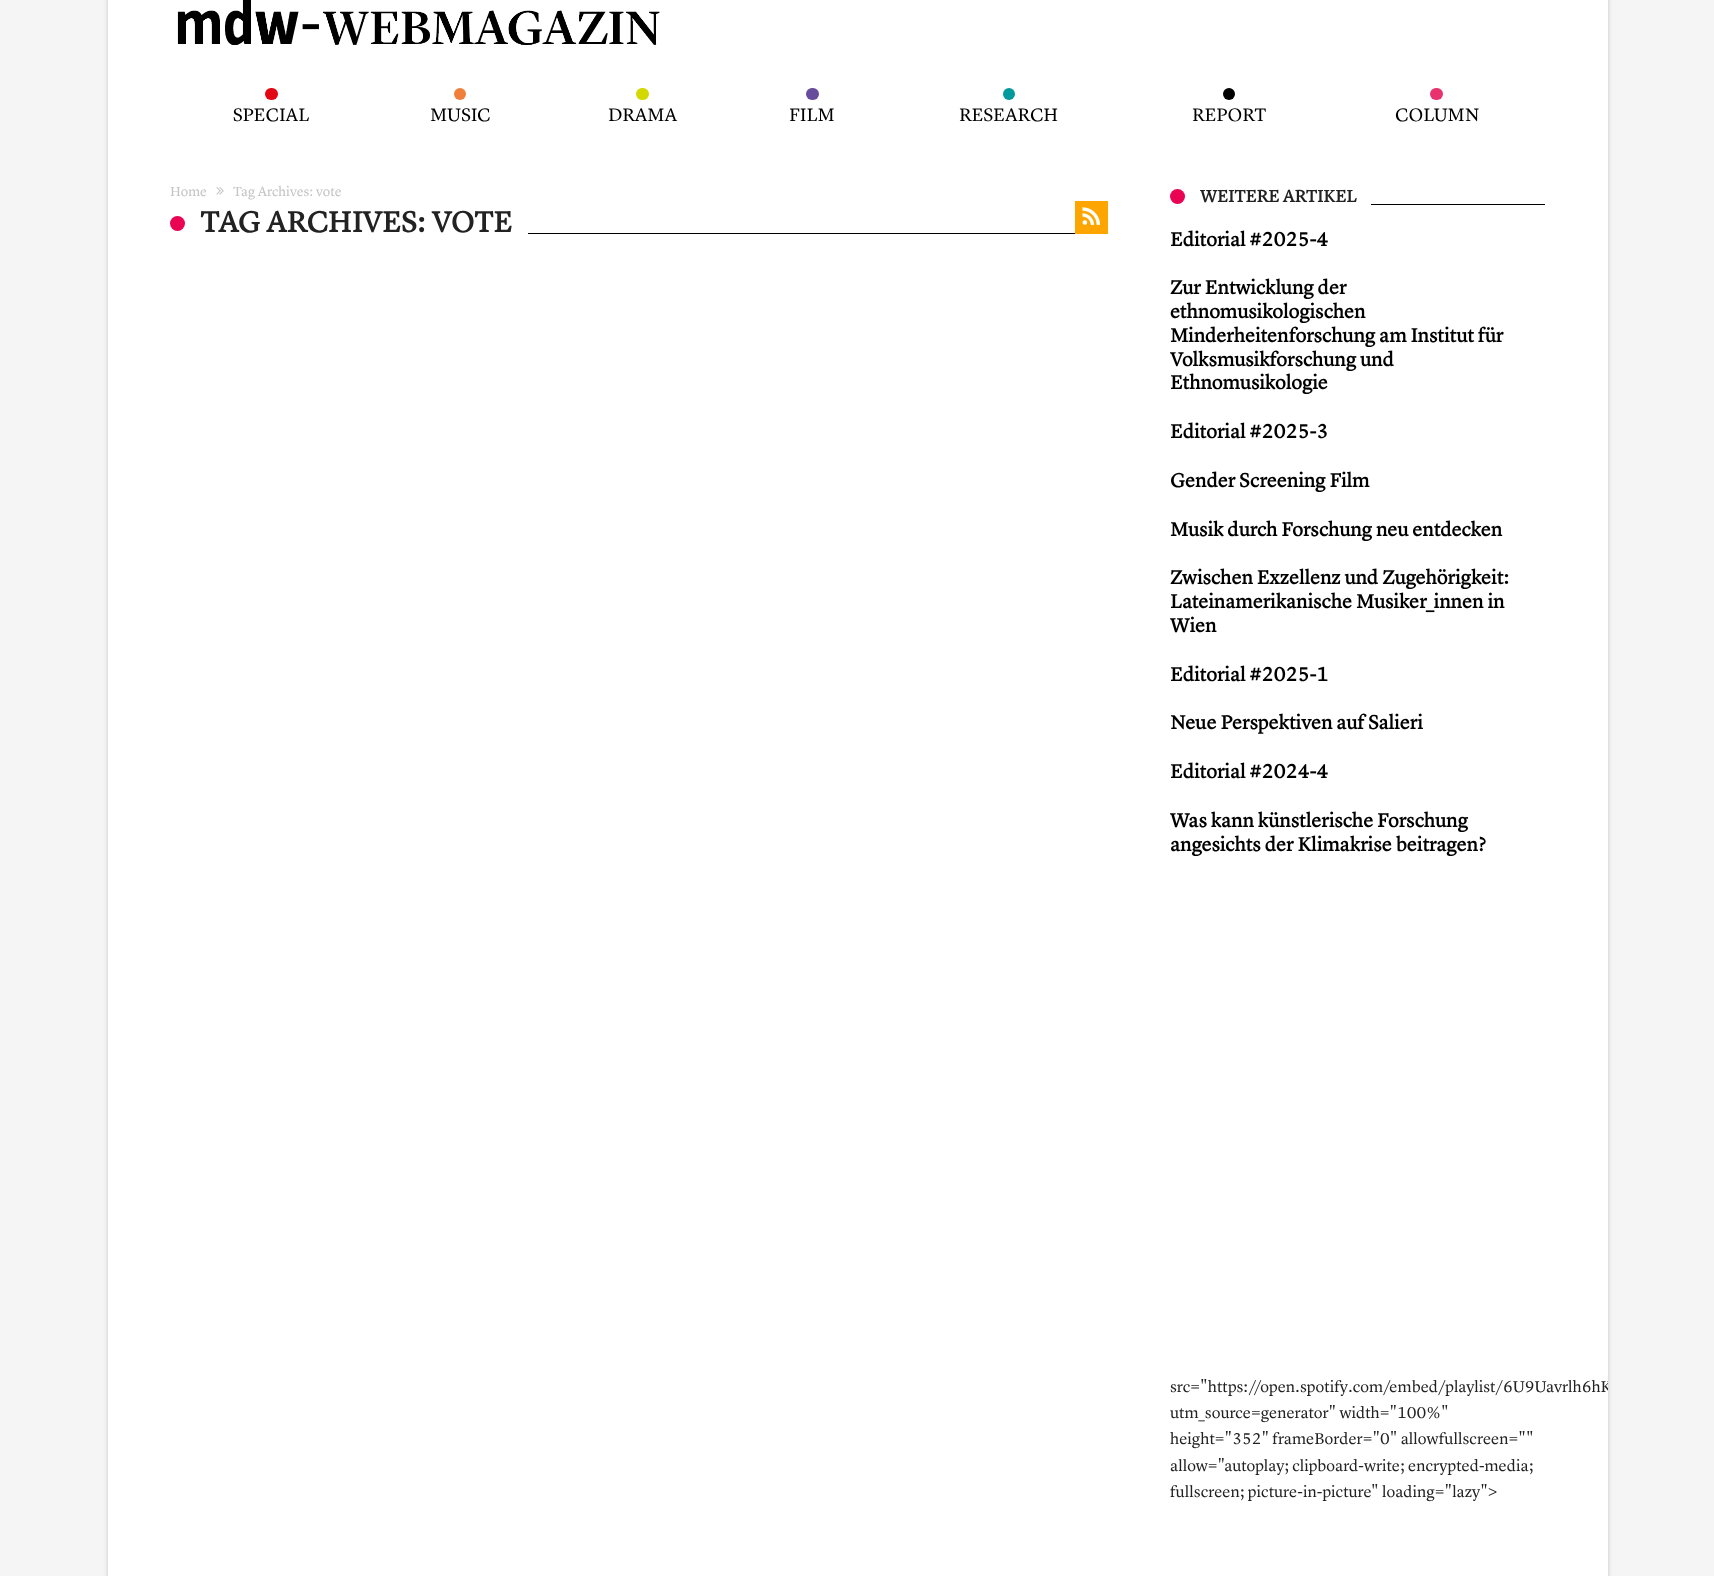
(async () => {
  const canvas = document.querySelector("canvas");
  canvas.width = 1714;
  canvas.height = 1576;
  const ctx = canvas.getContext("2d");
  ctx.miterLimit = 4;
  ctx.fontKerning = "normal";
  async function loadImage(src) {
    const img = new Image();
    img.src = src;
    await img.decode();
    return img;
  }

  ctx.fillStyle = "#f5f5f5";
  ctx.fillRect(0, 0, 1714, 1576);
  ctx.fillStyle = "rgba(0, 0, 0, 0.2)";
  ctx.filter = "blur(2px)";
  ctx.beginPath();
  ctx.rect(108, -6, 1500, 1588);
  ctx.fill();
  ctx.filter = "none";
  ctx.fillStyle = "#ffffff";
  ctx.fillRect(108, 0, 1500, 1576);
  ctx.drawImage(await loadImage("img/1.png"), 177, 0, 483, 45);
  ctx.fillStyle = "#e30613";
  ctx.beginPath();
  ctx.roundRect(265, 88, 13, 12, 6);
  ctx.fill();
  ctx.fillStyle = "#f07f3c";
  ctx.beginPath();
  ctx.arc(460, 94, 6, 0, Math.PI * 2);
  ctx.fill();
  ctx.fillStyle = "#d3d800";
  ctx.beginPath();
  ctx.roundRect(636, 88, 13, 12, 6);
  ctx.fill();
  ctx.fillStyle = "#664c9a";
  ctx.beginPath();
  ctx.roundRect(806, 88, 13, 12, 6);
  ctx.fill();
  ctx.fillStyle = "#009a9d";
  ctx.beginPath();
  ctx.arc(1009, 94, 6, 0, Math.PI * 2);
  ctx.fill();
  ctx.fillStyle = "#000000";
  ctx.beginPath();
  ctx.arc(1229, 94, 6, 0, Math.PI * 2);
  ctx.fill();
  ctx.fillStyle = "#e8336e";
  ctx.beginPath();
  ctx.roundRect(1430, 88, 13, 12, 6);
  ctx.fill();
  ctx.drawImage(await loadImage("img/2.png"), 216, 187, 8, 8);
  ctx.fillStyle = "#000000";
  ctx.fillRect(528, 233, 547, 1);
  ctx.fillStyle = "#ea0253";
  ctx.beginPath();
  ctx.arc(177.5, 223.5, 7.5, 0, Math.PI * 2);
  ctx.fill();
  ctx.fillStyle = "#ffa500";
  ctx.fillRect(1075, 201, 33, 33);
  ctx.drawImage(await loadImage("img/3.png"), 1082, 207, 18, 18);
  ctx.fillStyle = "#000000";
  ctx.fillRect(1371, 204, 174, 1);
  ctx.fillStyle = "#ea0253";
  ctx.beginPath();
  ctx.arc(1177.5, 196.5, 7.5, 0, Math.PI * 2);
  ctx.fill();
  ctx.font = "18.75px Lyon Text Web";
  ctx.fillStyle = "#000000";
  for (const [text, x, y] of [
    ["SPECIAL", 233, 121],
    ["MUSIC", 430, 121],
    ["DRAMA", 608, 121],
    ["FILM", 789, 121],
    ["RESEARCH", 959, 121],
    ["REPORT", 1192, 121],
    ["COLUMN", 1395, 121],
  ]) {
    ctx.fillText(text, x, y);
  }
  ctx.font = "13.75px Lyon Text Web";
  ctx.fillStyle = "#c3c3c3";
  ctx.fillText("Home", 170, 196);
  ctx.fillText("Tag Archives: vote", 233, 196);
  ctx.font = "bold 30px Lyon Text Web";
  ctx.fillStyle = "#222222";
  ctx.fillText("TAG ARCHIVES: VOTE", 200, 232);
  ctx.font = "bold 17.5px Lyon Text Web";
  ctx.fillText("WEITERE ARTIKEL", 1200, 202);
  ctx.font = "bold 20px Lyon Text Web";
  ctx.fillStyle = "#000000";
  for (const [text, x, y] of [
    ["Editorial #2025-4", 1170, 246],
    ["Zur Entwicklung der", 1170, 294],
    ["ethnomusikologischen", 1170, 318],
    ["Minderheitenforschung am Institut für", 1170, 342],
    ["Volksmusikforschung und", 1170, 366],
    ["Ethnomusikologie", 1170, 389],
    ["Editorial #2025-3", 1170, 438],
    ["Gender Screening Film", 1170, 487],
    ["Musik durch Forschung neu entdecken", 1170, 536],
    ["Zwischen Exzellenz und Zugehörigkeit:", 1170, 584],
    ["Lateinamerikanische Musiker_innen in", 1170, 608],
    ["Wien", 1170, 632],
    ["Editorial #2025-1", 1170, 681],
    ["Neue Perspektiven auf Salieri", 1170, 729],
    ["Editorial #2024-4", 1170, 778],
    ["Was kann künstlerische Forschung", 1170, 827],
    ["angesichts der Klimakrise beitragen?", 1170, 851],
  ]) {
    ctx.fillText(text, x, y);
  }
  ctx.save();
  ctx.beginPath();
  ctx.rect(108, 153, 1500, 1391);
  ctx.clip();
  ctx.font = "16.25px Lyon Text Web";
  ctx.fillStyle = "#222222";
  ctx.fillText("src=\"https://open.spotify.com/embed/playlist/6U9Uavrlh6hK", 1170, 1392);
  ctx.restore();
  ctx.font = "16.25px Lyon Text Web";
  ctx.fillStyle = "#222222";
  for (const [text, x, y] of [
    ["utm_source=generator\" width=\"100%\"", 1170, 1418],
    ["height=\"352\" frameBorder=\"0\" allowfullscreen=\"\"", 1170, 1444],
    ["allow=\"autoplay; clipboard-write; encrypted-media;", 1170, 1471],
    ["fullscreen; picture-in-picture\" loading=\"lazy\">", 1170, 1497],
  ]) {
    ctx.fillText(text, x, y);
  }
})();
